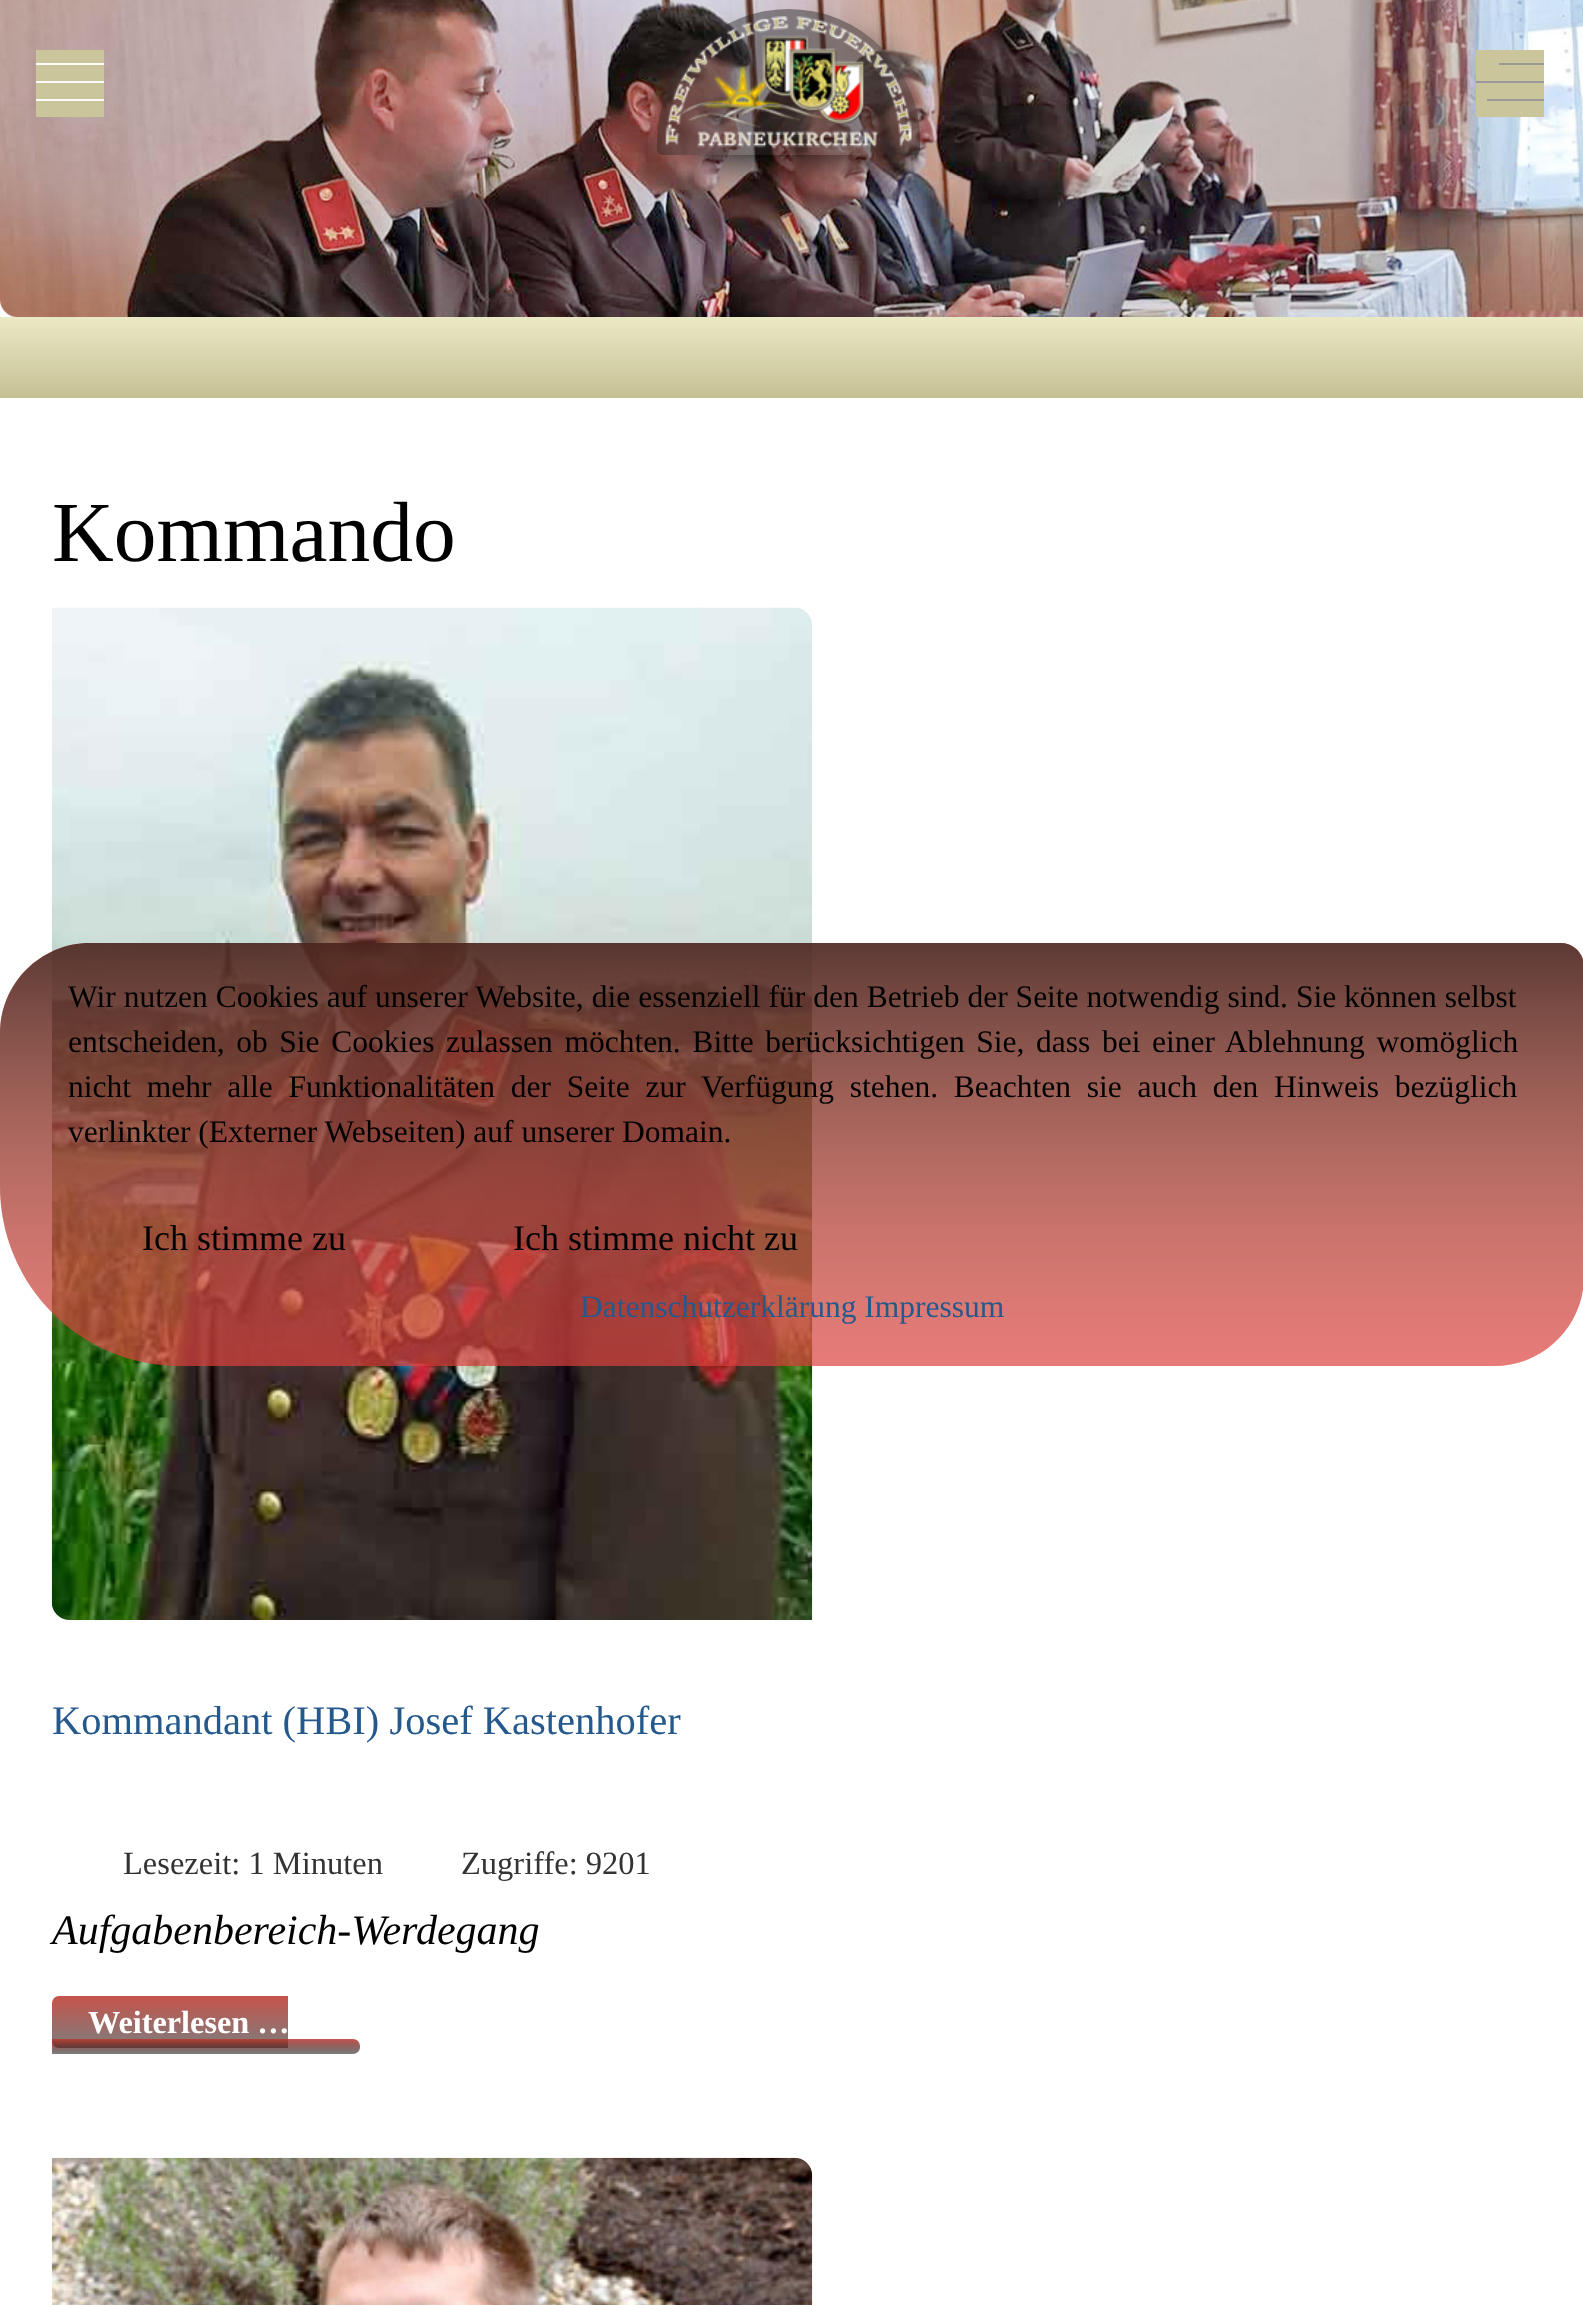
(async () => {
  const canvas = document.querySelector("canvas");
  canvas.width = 1583;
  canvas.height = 2305;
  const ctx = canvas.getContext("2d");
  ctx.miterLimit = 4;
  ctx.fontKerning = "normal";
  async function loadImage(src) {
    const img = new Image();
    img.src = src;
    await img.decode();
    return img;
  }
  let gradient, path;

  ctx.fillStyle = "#ffffff";
  ctx.fillRect(0, 0, 1583, 2305);
  ctx.drawImage(await loadImage("img/1.png"), 0, 0, 1583, 317);
  for (const [x, y, w, h, color] of [
    [36, 50, 68, 67, "#cac59a"],
    [36, 81, 68, 2, "#fcfbfb"],
    [36, 63, 68, 2, "#fcfbfb"],
    [36, 99, 68, 2, "#fcfbfb"],
  ]) {
    ctx.fillStyle = color;
    ctx.fillRect(x, y, w, h);
  }
  ctx.save();
  path = new Path2D("M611 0H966V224H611ZM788.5 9C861 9 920 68 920 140.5V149C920 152.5 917.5 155 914 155H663C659.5 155 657 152.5 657 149V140.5C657 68 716 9 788.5 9Z");
  ctx.clip(path, "evenodd");
  ctx.fillStyle = "#000000";
  ctx.filter = "blur(21.5px)";
  ctx.beginPath();
  ctx.roundRect(677, 52, 223, 106, 106);
  ctx.fill();
  ctx.filter = "none";
  ctx.restore();
  ctx.fillStyle = "rgba(32, 31, 31, 0.46)";
  ctx.beginPath();
  ctx.roundRect(657, 9, 263, 146, [131.5, 131.5, 5.98, 5.98]);
  ctx.fill();
  ctx.drawImage(await loadImage("img/2.png"), 665, 16, 247, 133);
  for (const [x, y, w, h, color] of [
    [1476, 50, 68, 67, "#cac59a"],
    [1476, 81, 68, 2, "#999999"],
    [1499, 63, 45, 2, "#999999"],
    [1487, 99, 57, 2, "#999999"],
  ]) {
    ctx.fillStyle = color;
    ctx.fillRect(x, y, w, h);
  }
  gradient = ctx.createLinearGradient(792, 317, 792, 398);
  gradient.addColorStop(0, "#eae9c5");
  gradient.addColorStop(1, "#c6c094");
  ctx.fillStyle = gradient;
  ctx.fillRect(0, 317, 1583, 81);
  ctx.drawImage(await loadImage("img/3.png"), 51, 607, 762, 1013);
  gradient = ctx.createLinearGradient(170, 1996, 170, 2048);
  gradient.addColorStop(0, "#c6544b");
  gradient.addColorStop(1, "#7d7d7d");
  ctx.fillStyle = gradient;
  ctx.beginPath();
  ctx.roundRect(52, 1996, 236, 52, [7, 0, 0, 7]);
  ctx.fill();
  gradient = ctx.createLinearGradient(206, 2039, 206, 2054);
  gradient.addColorStop(0, "rgba(189, 58, 48, 0.87)");
  gradient.addColorStop(1, "rgba(0, 0, 0, 0.51)");
  ctx.fillStyle = gradient;
  ctx.beginPath();
  ctx.roundRect(52, 2039, 308, 15, [0, 7, 7, 0]);
  ctx.fill();
  ctx.drawImage(await loadImage("img/4.png"), 51, 2157, 762, 148);
  ctx.fillStyle = "rgba(248, 4, 28, 0.59)";
  path = new Path2D("M90 943H1561C1573.5 943 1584 953.5 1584 966V1276C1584 1325.5 1543.5 1366 1494 1366H180C80.5 1366 0 1285.5 0 1186V1033C0 983.5 40.5 943 90 943Z");
  ctx.fill(path);
  gradient = ctx.createLinearGradient(792, 943, 792, 1366);
  gradient.addColorStop(0, "rgba(42, 42, 30, 0.76)");
  gradient.addColorStop(1, "rgba(173, 166, 118, 0.26)");
  ctx.fillStyle = gradient;
  path = new Path2D("M90 943H1561C1573.5 943 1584 953.5 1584 966V1276C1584 1325.5 1543.5 1366 1494 1366H180C80.5 1366 0 1285.5 0 1186V1033C0 983.5 40.5 943 90 943Z");
  ctx.fill(path);
  ctx.font = "85.5px Liberation Serif";
  ctx.fillStyle = "#000000";
  ctx.fillText("Kommando", 52, 561);
  ctx.font = "40.5px Liberation Serif";
  ctx.fillStyle = "#25598c";
  ctx.fillText("Kommandant (HBI) Josef Kastenhofer", 52, 1734);
  ctx.font = "32.5px Liberation Serif";
  ctx.fillStyle = "#333333";
  ctx.fillText("Lesezeit: 1 Minuten", 123, 1874);
  ctx.fillText("Zugriffe: 9201", 461, 1874);
  ctx.font = "italic 42px Liberation Serif";
  ctx.fillStyle = "#000000";
  ctx.fillText("Aufgabenbereich-Werdegang", 52, 1944);
  ctx.font = "bold 32.25px Liberation Serif";
  ctx.fillStyle = "#ffffff";
  ctx.fillText("Weiterlesen …", 88, 2033);
  ctx.wordSpacing = "0.1px";
  ctx.font = "31.5px Liberation Serif";
  ctx.fillStyle = "#000000";
  ctx.fillText("Wir nutzen Cookies auf unserer Website, die essenziell für den Betrieb der Seite notwendig sind. Sie können selbst", 68, 1007);
  ctx.wordSpacing = "3.75px";
  ctx.fillText("entscheiden, ob Sie Cookies zulassen möchten. Bitte berücksichtigen Sie, dass bei einer Ablehnung womöglich", 68, 1052);
  ctx.wordSpacing = "7.9px";
  ctx.fillText("nicht mehr alle Funktionalitäten der Seite zur Verfügung stehen. Beachten sie auch den Hinweis bezüglich", 68, 1097);
  ctx.wordSpacing = "0px";
  ctx.fillText("verlinkter (Externer Webseiten) auf unserer Domain.", 68, 1142);
  ctx.font = "36px Liberation Serif";
  ctx.fillText("Ich stimme zu", 142, 1250);
  ctx.fillText("Ich stimme nicht zu", 513, 1250);
  ctx.font = "31.5px Liberation Serif";
  ctx.fillStyle = "#25598c";
  ctx.fillText("Datenschutzerklärung Impressum", 580, 1317);
})();
